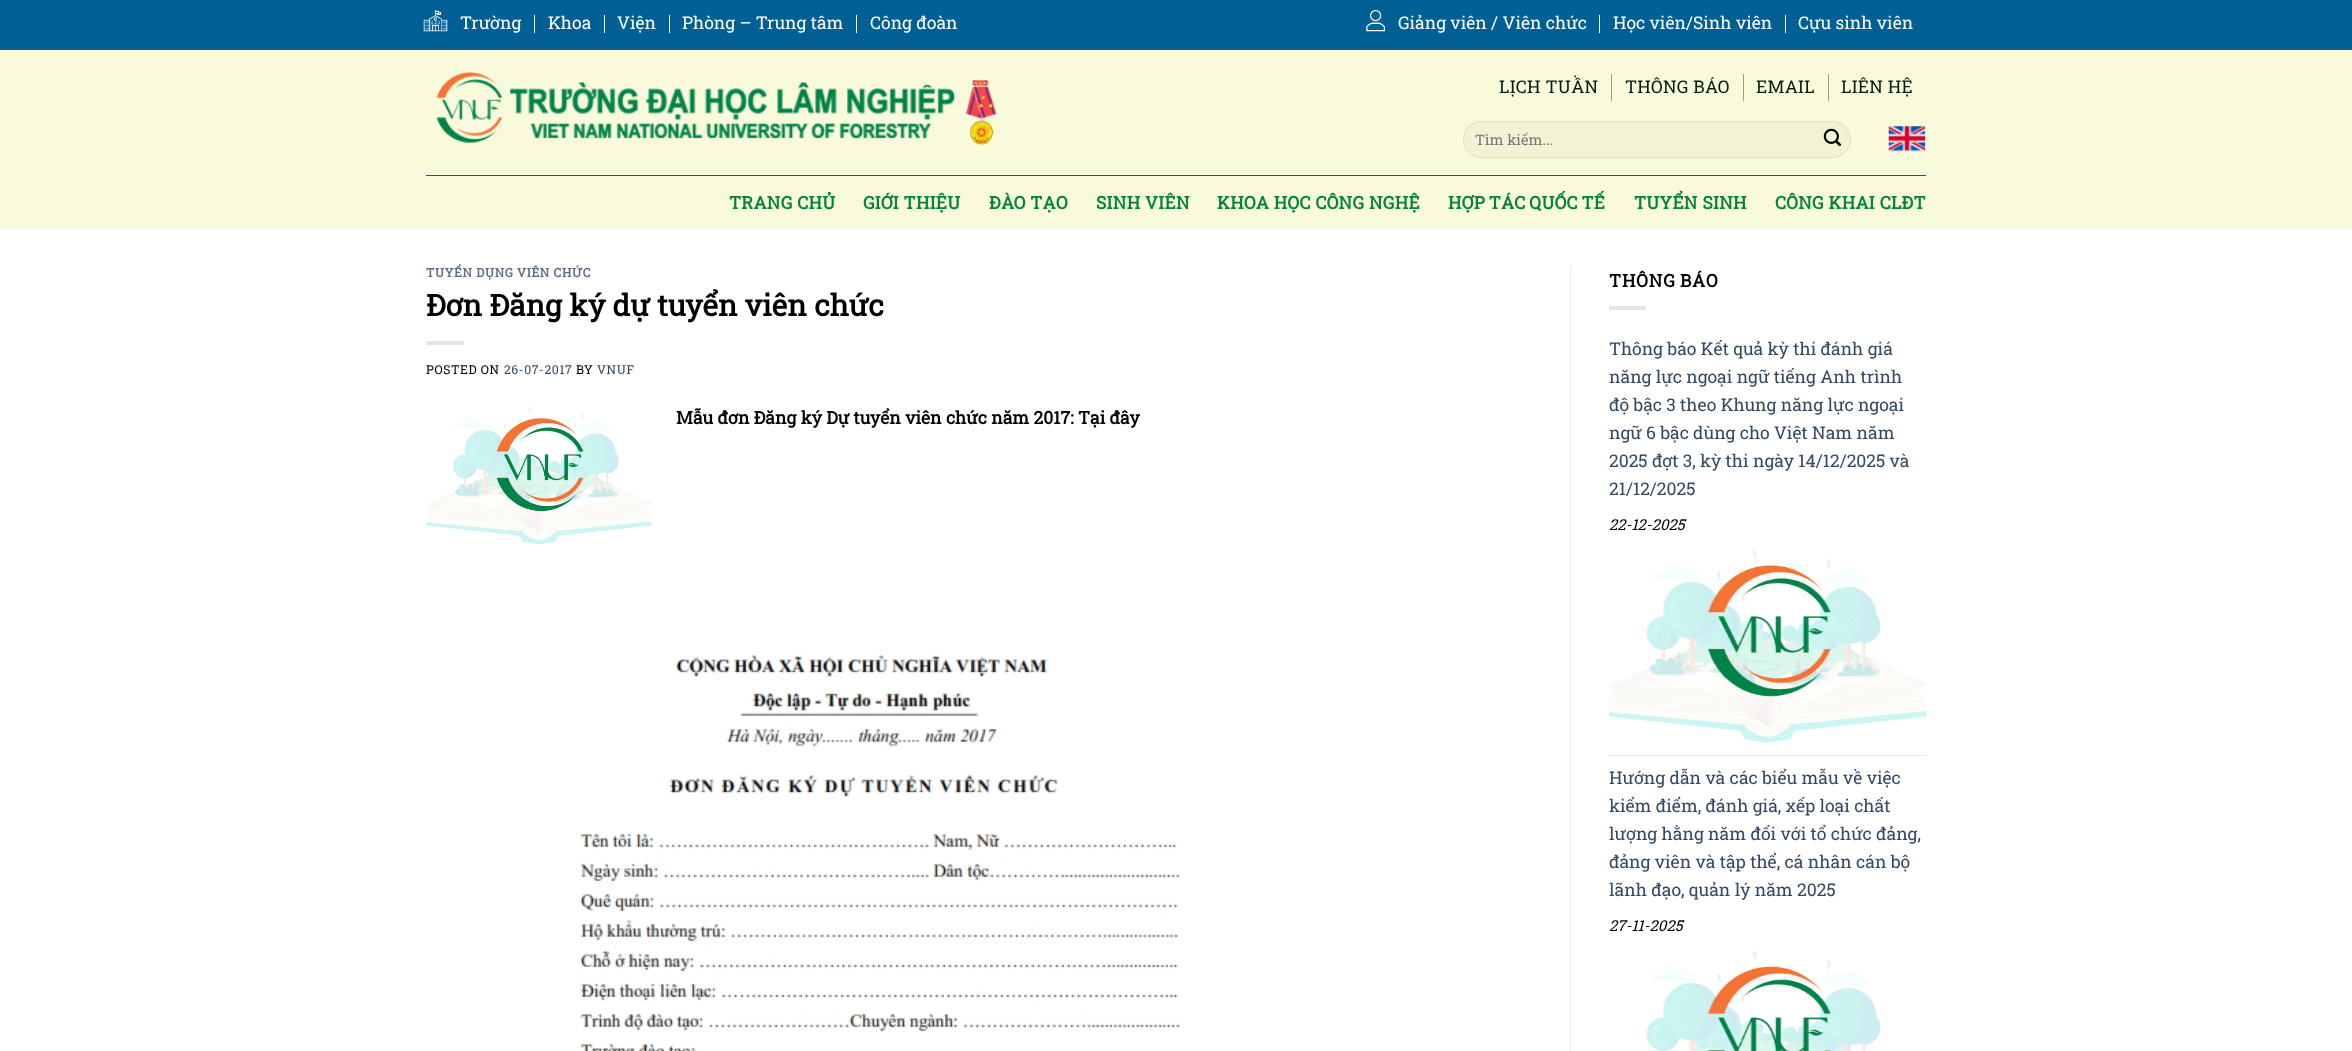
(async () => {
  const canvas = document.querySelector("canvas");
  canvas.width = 2352;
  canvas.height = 1051;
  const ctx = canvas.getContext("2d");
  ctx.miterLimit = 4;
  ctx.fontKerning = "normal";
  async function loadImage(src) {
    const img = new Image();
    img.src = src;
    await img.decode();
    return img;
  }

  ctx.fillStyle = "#ffffff";
  ctx.fillRect(0, 0, 2352, 1051);
  ctx.fillStyle = "#f9fadc";
  ctx.fillRect(0, 50, 2352, 179);
  ctx.fillStyle = "#006096";
  ctx.fillRect(0, 0, 2352, 50);
  ctx.drawImage(await loadImage("img/1.png"), 423, 10, 25, 22);
  for (const [x, y, w, h, color] of [
    [534, 15, 1, 18, "#ffffff"],
    [604, 15, 1, 18, "#ffffff"],
    [669, 15, 1, 18, "#ffffff"],
    [856, 15, 1, 18, "#ffffff"],
  ]) {
    ctx.fillStyle = color;
    ctx.fillRect(x, y, w, h);
  }
  ctx.drawImage(await loadImage("img/2.png"), 1366, 10, 19, 22);
  ctx.fillRect(1599, 15, 1, 18);
  ctx.fillRect(1785, 15, 1, 18);
  ctx.drawImage(await loadImage("img/3.png"), 436, 72, 561, 73);
  for (const [x, y, w, h, color] of [
    [1611, 74, 1, 27, "#999999"],
    [1743, 74, 1, 27, "#999999"],
    [1828, 74, 1, 27, "#999999"],
  ]) {
    ctx.fillStyle = color;
    ctx.fillRect(x, y, w, h);
  }
  ctx.fillStyle = "#f2f3d5";
  ctx.beginPath();
  ctx.roundRect(1463, 121, 388, 37, 18.5);
  ctx.fill();
  ctx.beginPath();
  ctx.roundRect(1463.5, 121.5, 387, 36, 18);
  ctx.strokeStyle = "rgba(0, 0, 0, 0.09)";
  ctx.stroke();
  ctx.drawImage(await loadImage("img/4.png"), 1823, 128, 19, 19);
  ctx.drawImage(await loadImage("img/5.png"), 1888, 126, 38, 26);
  ctx.fillStyle = "#006096";
  ctx.fillRect(426, 175, 1500, 1);
  ctx.fillStyle = "#e6e6e6";
  ctx.fillRect(426, 341, 38, 4);
  ctx.drawImage(await loadImage("img/6.png"), 426, 407, 226, 137);
  ctx.drawImage(await loadImage("img/7.png"), 578, 654, 603, 397);
  ctx.fillStyle = "#ececec";
  ctx.fillRect(1570, 266, 1, 785);
  ctx.fillStyle = "#e6e6e6";
  ctx.fillRect(1609, 306, 37, 4);
  ctx.drawImage(await loadImage("img/8.png"), 1609, 550, 318, 193);
  ctx.fillStyle = "#ececec";
  ctx.fillRect(1609, 755, 317, 1);
  ctx.drawImage(await loadImage("img/9.png"), 1646, 951, 235, 100);
  ctx.font = "17.5px Roboto Slab";
  ctx.fillStyle = "#ffffff";
  for (const [text, x, y] of [
    ["Trường", 460, 29],
    ["Khoa", 548, 29],
    ["Viện", 617, 29],
    ["Phòng – Trung tâm", 682, 29],
    ["Công đoàn", 870, 29],
    ["Giảng viên / Viên chức", 1398, 29],
    ["Học viên/Sinh viên", 1613, 29],
    ["Cựu sinh viên", 1798, 29],
  ]) {
    ctx.fillText(text, x, y);
  }
  ctx.letterSpacing = "0.3px";
  ctx.fillStyle = "#021d0c";
  for (const [text, x, y] of [
    ["LỊCH TUẦN", 1499, 93],
    ["THÔNG BÁO", 1625, 93],
    ["EMAIL", 1756, 93],
    ["LIÊN HỆ", 1841, 93],
  ]) {
    ctx.fillText(text, x, y);
  }
  ctx.letterSpacing = "0px";
  ctx.font = "14.5px Roboto Slab";
  ctx.fillStyle = "#757575";
  ctx.fillText("Tìm kiếm...", 1475, 145);
  ctx.letterSpacing = "0.3px";
  ctx.font = "bold 17.5px Roboto Slab";
  ctx.fillStyle = "#018438";
  for (const [text, x, y] of [
    ["TRANG CHỦ", 729, 209],
    ["GIỚI THIỆU", 863, 209],
    ["ĐÀO TẠO", 989, 209],
    ["SINH VIÊN", 1096, 209],
    ["KHOA HỌC CÔNG NGHỆ", 1217, 209],
  ]) {
    ctx.fillText(text, x, y);
  }
  ctx.wordSpacing = "-1px";
  ctx.fillText("HỢP TÁC QUỐC TẾ", 1448, 209);
  ctx.wordSpacing = "0px";
  ctx.fillText("TUYỂN SINH", 1634, 209);
  ctx.fillText("CÔNG KHAI CLĐT", 1775, 209);
  ctx.letterSpacing = "0.6px";
  ctx.font = "bold 12.25px Roboto Slab";
  ctx.fillStyle = "#5c6d81";
  ctx.fillText("TUYỂN DỤNG VIÊN CHỨC", 426, 277);
  ctx.letterSpacing = "0px";
  ctx.font = "bold 29.75px Roboto Slab";
  ctx.fillStyle = "#000000";
  ctx.fillText("Đơn Đăng ký dự tuyển viên chức", 426, 316);
  ctx.letterSpacing = "0.6px";
  ctx.font = "12.25px Roboto Slab";
  ctx.fillText("POSTED ON", 426, 374);
  ctx.fillStyle = "#334862";
  ctx.fillText("26-07-2017", 504, 374);
  ctx.fillStyle = "#000000";
  ctx.fillText("BY", 576, 374);
  ctx.fillStyle = "#334862";
  ctx.fillText("VNUF", 597, 374);
  ctx.letterSpacing = "0px";
  ctx.font = "bold 17.5px Roboto Slab";
  ctx.fillStyle = "#000000";
  ctx.fillText("Mẫu đơn Đăng ký Dự tuyển viên chức năm 2017: Tại đây", 676, 424);
  ctx.letterSpacing = "0.9px";
  ctx.wordSpacing = "-1px";
  ctx.fillText("THÔNG BÁO", 1609, 287);
  ctx.letterSpacing = "0px";
  ctx.wordSpacing = "0px";
  ctx.font = "17.5px Roboto Slab";
  ctx.fillStyle = "#334862";
  for (const [text, x, y] of [
    ["Thông báo Kết quả kỳ thi đánh giá", 1609, 355],
    ["năng lực ngoại ngữ tiếng Anh trình", 1609, 383],
    ["độ bậc 3 theo Khung năng lực ngoại", 1609, 411],
    ["ngữ 6 bậc dùng cho Việt Nam năm", 1609, 439],
    ["2025 đợt 3, kỳ thi ngày 14/12/2025 và", 1609, 467],
    ["21/12/2025", 1609, 495],
  ]) {
    ctx.fillText(text, x, y);
  }
  ctx.font = "italic 15px Roboto Slab";
  ctx.fillStyle = "#000000";
  ctx.fillText("22-12-2025", 1609, 530);
  ctx.font = "17.5px Roboto Slab";
  ctx.fillStyle = "#334862";
  for (const [text, x, y] of [
    ["Hướng dẫn và các biểu mẫu về việc", 1609, 784],
    ["kiểm điểm, đánh giá, xếp loại chất", 1609, 812],
    ["lượng hằng năm đối với tổ chức đảng,", 1609, 840],
    ["đảng viên và tập thể, cá nhân cán bộ", 1609, 868],
    ["lãnh đạo, quản lý năm 2025", 1609, 896],
  ]) {
    ctx.fillText(text, x, y);
  }
  ctx.font = "italic 15px Roboto Slab";
  ctx.fillStyle = "#000000";
  ctx.fillText("27-11-2025", 1609, 931);
})();
